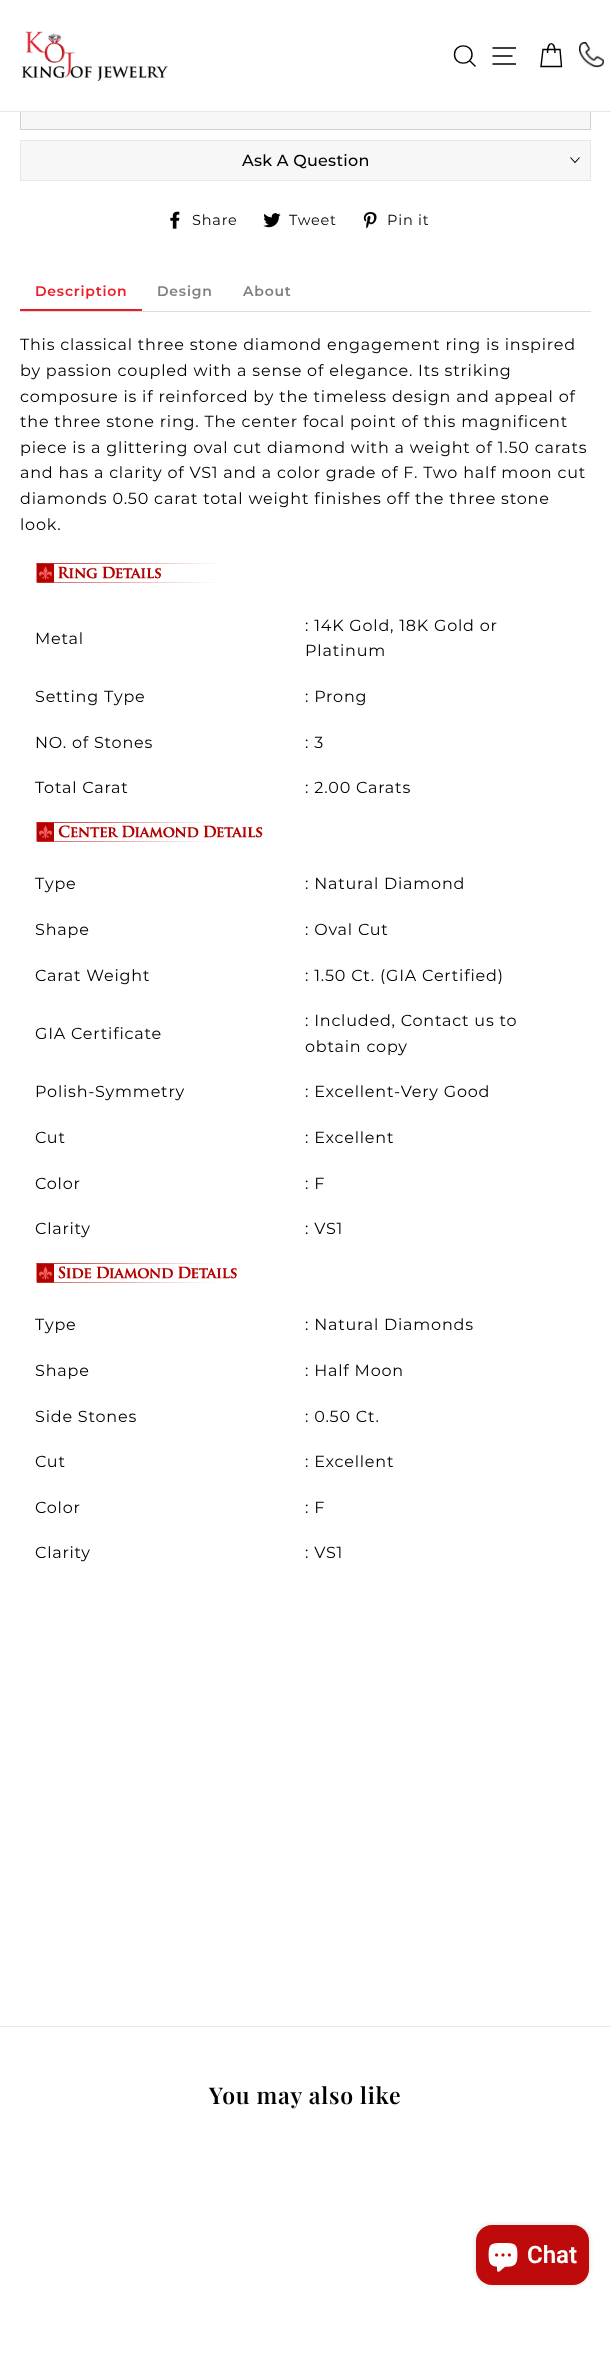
(async () => {
  const canvas = document.querySelector("canvas");
  canvas.width = 611;
  canvas.height = 2370;
  const ctx = canvas.getContext("2d");
  ctx.miterLimit = 4;
  ctx.fontKerning = "normal";
  async function loadImage(src) {
    const img = new Image();
    img.src = src;
    await img.decode();
    return img;
  }
  let path;

  ctx.fillStyle = "#ffffff";
  ctx.fillRect(0, 0, 611, 2370);
  ctx.fillStyle = "#f7f7f7";
  ctx.fillRect(21, 112, 569, 17);
  ctx.strokeStyle = "#d1d1d1";
  ctx.strokeRect(20.5, 85.5, 570, 44);
  ctx.fillStyle = "#ffffff";
  ctx.fillRect(20, 85, 571, 26);
  ctx.fillStyle = "#e8e8e1";
  ctx.fillRect(0, 111, 611, 1);
  ctx.drawImage(await loadImage("img/1.png"), 21, 31, 148, 50);
  path = new Path2D("M472 54.5C472 66 454.5 66 454.5 54.5C454.5 43 472 43 472 54.5ZM475.5 66.5L469.5 60.5M492.5 48H516M492.5 56H512.5M492.5 64H516");
  ctx.strokeStyle = "#000000";
  ctx.lineWidth = 1.4;
  ctx.stroke(path);
  path = new Path2D("M547.5 53C547.5 40.5 555 40.5 555 53M543 49.5H560L561.5 66.5H541Z");
  ctx.stroke(path);
  ctx.drawImage(await loadImage("img/2.png"), 579, 42, 25, 26);
  for (const [x, y, w, h, color] of [
    [20, 180, 571, 1, "#e8e8e1"],
    [21, 141, 569, 39, "#f7f7f7"],
    [20, 140, 571, 1, "#e8e8e1"],
    [590, 140, 1, 40, "#e8e8e1"],
    [20, 140, 1, 40, "#e8e8e1"],
  ]) {
    ctx.fillStyle = color;
    ctx.fillRect(x, y, w, h);
  }
  path = new Path2D("M570.5 157.5L575 162.5L579.5 157.5");
  ctx.lineWidth = 1.1;
  ctx.stroke(path);
  ctx.drawImage(await loadImage("img/3.png"), 170, 211, 10, 18);
  ctx.drawImage(await loadImage("img/4.png"), 263, 213, 18, 15);
  ctx.drawImage(await loadImage("img/5.png"), 363, 212, 14, 17);
  ctx.fillStyle = "#dddddd";
  ctx.fillRect(20, 311, 571, 1);
  ctx.fillStyle = "#ed1b24";
  ctx.fillRect(20, 309, 122, 2);
  ctx.drawImage(await loadImage("img/6.png"), 36, 563, 184, 20);
  ctx.drawImage(await loadImage("img/7.png"), 36, 822, 227, 20);
  ctx.drawImage(await loadImage("img/8.png"), 36, 1263, 201, 20);
  ctx.fillStyle = "#e8e8e1";
  ctx.fillRect(0, 2026, 611, 1);
  ctx.fillStyle = "rgba(0, 0, 0, 0.15)";
  ctx.filter = "blur(2.5px)";
  ctx.beginPath();
  ctx.roundRect(476, 2225, 113, 60, 16);
  ctx.fill();
  ctx.filter = "none";
  ctx.fillStyle = "#be0a0a";
  ctx.beginPath();
  ctx.roundRect(476, 2225, 113, 60, 16);
  ctx.fill();
  ctx.drawImage(await loadImage("img/9.png"), 488, 2243, 30, 29);
  ctx.letterSpacing = "0.25px";
  ctx.font = "500 16px Montserrat";
  ctx.fillStyle = "#000000";
  ctx.fillText("Ask A Question", 242, 166);
  ctx.letterSpacing = "0.8px";
  ctx.font = "14.5px Montserrat";
  for (const [text, x, y] of [
    ["Share", 192, 225],
    ["Tweet", 289, 225],
    ["Pin it", 387, 225],
  ]) {
    ctx.fillText(text, x, y);
  }
  ctx.font = "600 14px Montserrat";
  ctx.fillStyle = "#ed1b24";
  ctx.fillText("Description", 35, 296);
  ctx.fillStyle = "#808080";
  ctx.fillText("Design", 157, 296);
  ctx.fillText("About", 243, 296);
  ctx.font = "16px Montserrat";
  ctx.fillStyle = "#000000";
  for (const [text, x, y] of [
    ["This classical three stone diamond engagement ring is inspired", 20, 350],
    ["by passion coupled with a sense of elegance. Its striking", 20, 376],
    ["composure is if reinforced by the timeless design and appeal of", 20, 402],
    ["the three stone ring. The center focal point of this magnificent", 20, 427],
    ["piece is a glittering oval cut diamond with a weight of 1.50 carats", 20, 453],
    ["and has a clarity of VS1 and a color grade of F. Two half moon cut", 20, 478],
    ["diamonds 0.50 carat total weight finishes off the three stone", 20, 504],
    ["look.", 20, 530],
    ["Metal", 35, 644],
    [": 14K Gold, 18K Gold or", 305, 631],
    ["Platinum", 305, 656],
    ["Setting Type", 35, 702],
    [": Prong", 305, 702],
    ["NO. of Stones", 35, 748],
    [": 3", 305, 748],
    ["Total Carat", 35, 793],
    [": 2.00 Carats", 305, 793],
    ["Type", 35, 889],
    [": Natural Diamond", 305, 889],
    ["Shape", 35, 935],
    [": Oval Cut", 305, 935],
    ["Carat Weight", 35, 981],
    [": 1.50 Ct. (GIA Certified)", 305, 981],
    ["GIA Certificate", 35, 1039],
    [": Included, Contact us to", 305, 1026],
    ["obtain copy", 305, 1052],
    ["Polish-Symmetry", 35, 1097],
    [": Excellent-Very Good", 305, 1097],
    ["Cut", 35, 1143],
    [": Excellent", 305, 1143],
    ["Color", 35, 1189],
    [": F", 305, 1189],
    ["Clarity", 35, 1234],
    [": VS1", 305, 1234],
    ["Type", 35, 1330],
    [": Natural Diamonds", 305, 1330],
    ["Shape", 35, 1376],
    [": Half Moon", 305, 1376],
    ["Side Stones", 35, 1422],
    [": 0.50 Ct.", 305, 1422],
    ["Cut", 35, 1467],
    [": Excellent", 305, 1467],
    ["Color", 35, 1513],
    [": F", 305, 1513],
    ["Clarity", 35, 1558],
    [": VS1", 305, 1558],
  ]) {
    ctx.fillText(text, x, y);
  }
  ctx.font = "600 23px Playfair Display";
  ctx.fillText("You may also like", 209, 2104);
  ctx.letterSpacing = "0px";
  ctx.font = "600 24px Roboto";
  ctx.fillStyle = "#ffffff";
  ctx.fillText("Chat", 527, 2263);
})();
